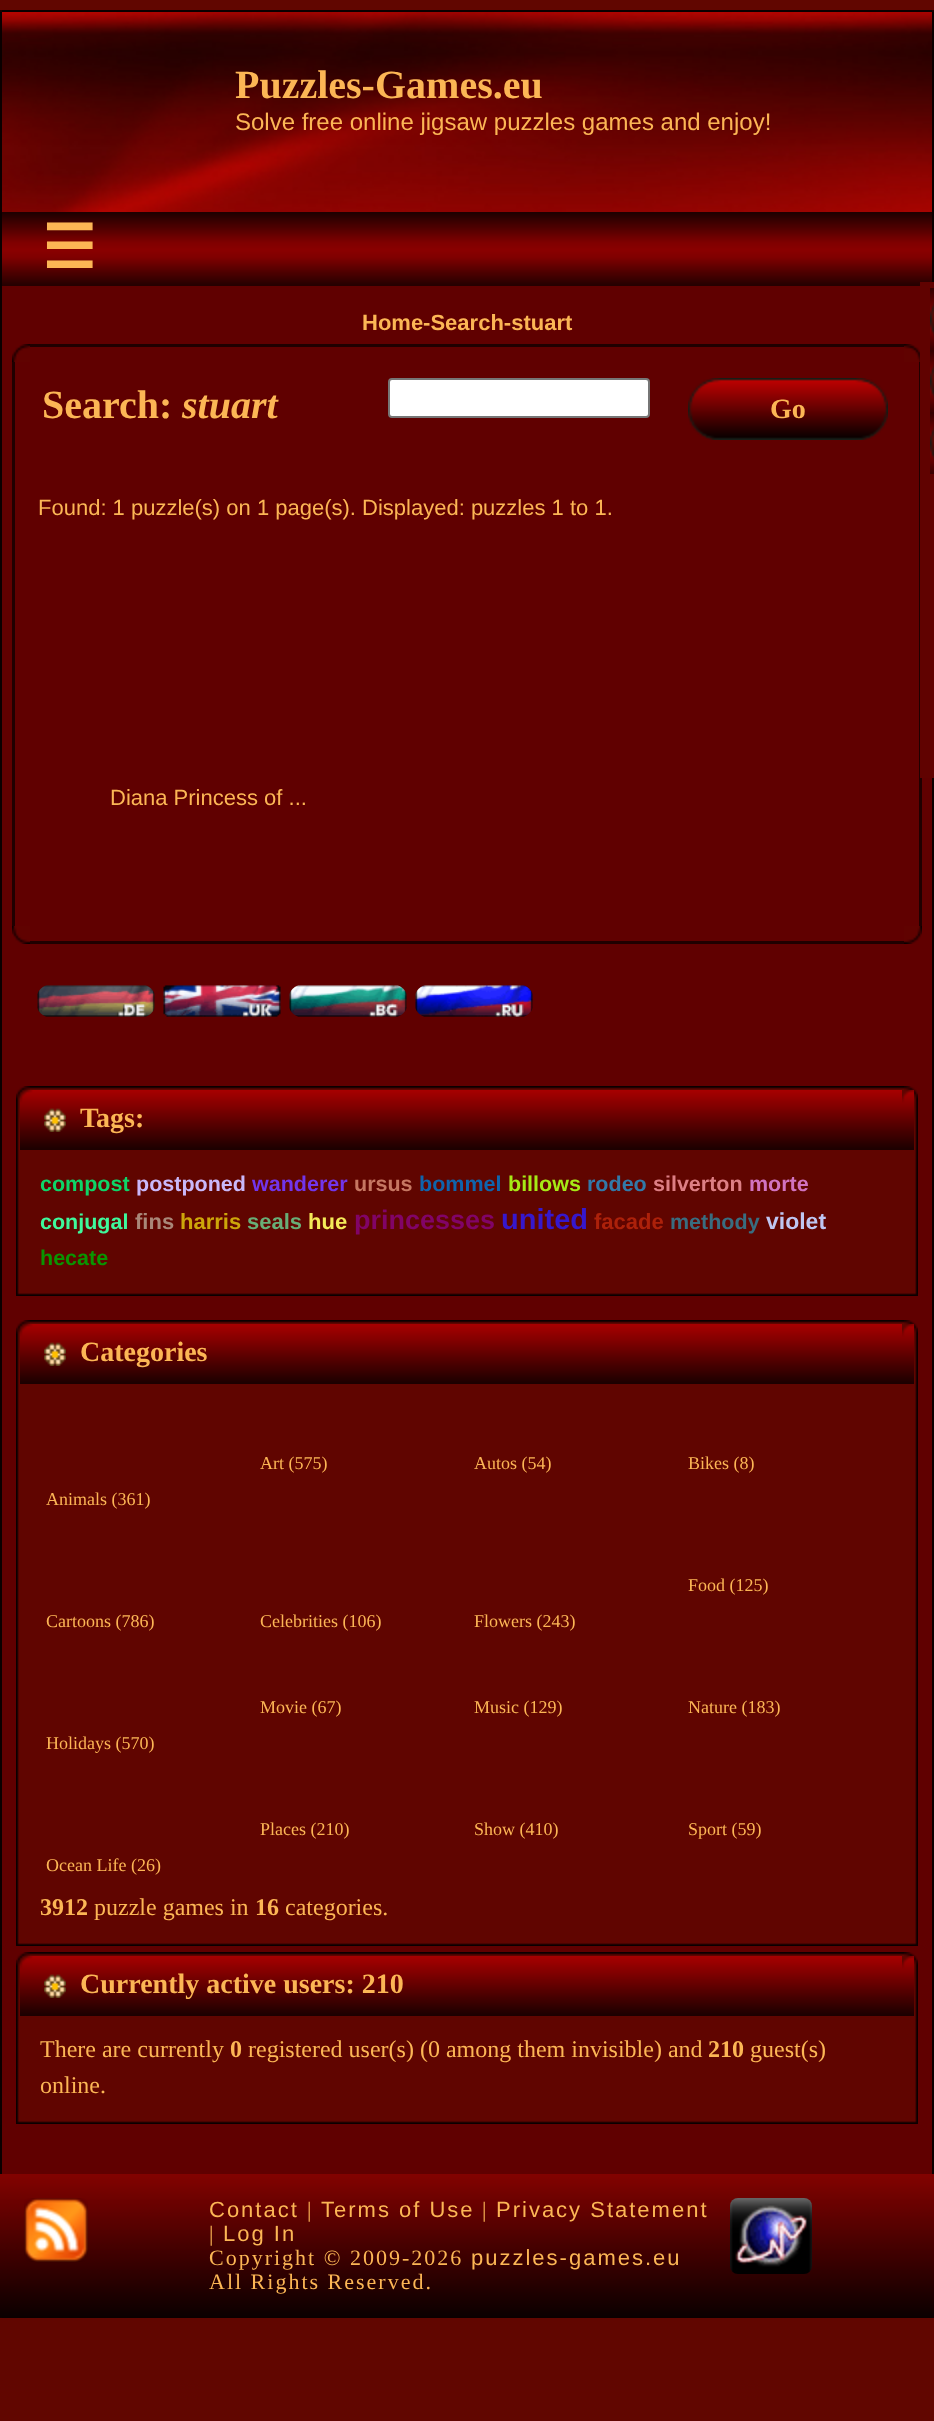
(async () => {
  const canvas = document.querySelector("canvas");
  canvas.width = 934;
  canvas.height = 2421;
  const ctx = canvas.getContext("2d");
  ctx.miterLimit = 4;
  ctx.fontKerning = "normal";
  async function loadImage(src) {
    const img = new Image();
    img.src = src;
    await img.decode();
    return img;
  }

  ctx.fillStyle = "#610600";
  ctx.fillRect(0, 0, 934, 2421);
  ctx.fillStyle = "#1a0100";
  ctx.fillRect(0, 10, 2, 2);
  ctx.fillStyle = "#0a0000";
  ctx.fillRect(2, 10, 930, 2);
  ctx.drawImage(await loadImage("img/1.png"), 932, 10, 2, 2);
  ctx.fillRect(0, 12, 2, 2162);
  ctx.drawImage(await loadImage("img/2.png"), 2, 12, 930, 200);
  ctx.drawImage(await loadImage("img/3.png"), 2, 212, 930, 74);
  for (const [x, y, w, h, color] of [
    [2, 286, 930, 1888, "#600000"],
    [919, 362, 3, 564, "#1f0000"],
    [932, 12, 2, 2162, "#0a0000"],
    [920, 282, 14, 496, "#600200"],
  ]) {
    ctx.fillStyle = color;
    ctx.fillRect(x, y, w, h);
  }
  ctx.drawImage(await loadImage("img/4.png"), 930, 288, 4, 62);
  ctx.drawImage(await loadImage("img/4.png"), 930, 350, 4, 62);
  ctx.drawImage(await loadImage("img/4.png"), 930, 412, 4, 62);
  ctx.drawImage(await loadImage("img/5.png"), 12, 344, 18, 18);
  ctx.fillStyle = "#1f0000";
  ctx.fillRect(30, 344, 874, 3);
  ctx.drawImage(await loadImage("img/6.png"), 904, 344, 16, 18);
  ctx.fillRect(12, 362, 3, 564);
  ctx.fillStyle = "#ffffff";
  ctx.beginPath();
  ctx.roundRect(389, 379, 260, 38, 3);
  ctx.fill();
  ctx.strokeStyle = "#767676";
  ctx.lineWidth = 2;
  ctx.stroke();
  ctx.drawImage(await loadImage("img/7.png"), 688, 378, 166, 62);
  ctx.drawImage(await loadImage("img/8.png"), 854, 378, 34, 62);
  ctx.drawImage(await loadImage("img/9.png"), 12, 926, 18, 18);
  ctx.fillStyle = "#1f0000";
  ctx.fillRect(30, 941, 874, 3);
  ctx.drawImage(await loadImage("img/10.png"), 904, 926, 18, 18);
  ctx.drawImage(await loadImage("img/11.png"), 37, 985, 118, 32);
  ctx.drawImage(await loadImage("img/12.png"), 163, 985, 118, 32);
  ctx.drawImage(await loadImage("img/13.png"), 289, 985, 118, 32);
  ctx.drawImage(await loadImage("img/14.png"), 415, 985, 118, 32);
  ctx.drawImage(await loadImage("img/15.png"), 16, 1086, 14, 14);
  ctx.drawImage(await loadImage("img/16.png"), 30, 1086, 874, 14);
  ctx.drawImage(await loadImage("img/17.png"), 904, 1086, 14, 14);
  ctx.drawImage(await loadImage("img/18.png"), 16, 1100, 14, 182);
  ctx.fillStyle = "#600500";
  ctx.fillRect(30, 1100, 874, 182);
  ctx.drawImage(await loadImage("img/19.png"), 904, 1100, 14, 182);
  ctx.drawImage(await loadImage("img/20.png"), 20, 1090, 882, 60);
  ctx.drawImage(await loadImage("img/21.png"), 902, 1090, 12, 60);
  ctx.drawImage(await loadImage("img/22.png"), 44, 1108, 22, 24);
  ctx.drawImage(await loadImage("img/23.png"), 16, 1282, 14, 14);
  ctx.drawImage(await loadImage("img/24.png"), 30, 1282, 874, 14);
  ctx.drawImage(await loadImage("img/25.png"), 904, 1282, 14, 14);
  ctx.drawImage(await loadImage("img/15.png"), 16, 1320, 14, 14);
  ctx.drawImage(await loadImage("img/16.png"), 30, 1320, 874, 14);
  ctx.drawImage(await loadImage("img/17.png"), 904, 1320, 14, 14);
  ctx.drawImage(await loadImage("img/26.png"), 16, 1334, 14, 598);
  ctx.fillRect(30, 1334, 874, 598);
  ctx.drawImage(await loadImage("img/27.png"), 904, 1334, 14, 598);
  ctx.drawImage(await loadImage("img/20.png"), 20, 1324, 882, 60);
  ctx.drawImage(await loadImage("img/21.png"), 902, 1324, 12, 60);
  ctx.drawImage(await loadImage("img/22.png"), 44, 1342, 22, 24);
  ctx.drawImage(await loadImage("img/23.png"), 16, 1932, 14, 14);
  ctx.drawImage(await loadImage("img/24.png"), 30, 1932, 874, 14);
  ctx.drawImage(await loadImage("img/25.png"), 904, 1932, 14, 14);
  ctx.drawImage(await loadImage("img/15.png"), 16, 1952, 14, 14);
  ctx.drawImage(await loadImage("img/16.png"), 30, 1952, 874, 14);
  ctx.drawImage(await loadImage("img/17.png"), 904, 1952, 14, 14);
  ctx.drawImage(await loadImage("img/28.png"), 16, 1966, 14, 144);
  ctx.fillRect(30, 1966, 874, 144);
  ctx.drawImage(await loadImage("img/29.png"), 904, 1966, 14, 144);
  ctx.drawImage(await loadImage("img/20.png"), 20, 1956, 882, 60);
  ctx.drawImage(await loadImage("img/21.png"), 902, 1956, 12, 60);
  ctx.drawImage(await loadImage("img/22.png"), 44, 1974, 22, 24);
  ctx.drawImage(await loadImage("img/23.png"), 16, 2110, 14, 14);
  ctx.drawImage(await loadImage("img/24.png"), 30, 2110, 874, 14);
  ctx.drawImage(await loadImage("img/25.png"), 904, 2110, 14, 14);
  ctx.drawImage(await loadImage("img/30.png"), 0, 2174, 934, 143);
  ctx.drawImage(await loadImage("img/31.png"), 24, 2198, 64, 64);
  ctx.drawImage(await loadImage("img/32.png"), 730, 2198, 82, 76);
  ctx.drawImage(await loadImage("img/33.png"), 0, 2317, 2, 1);
  ctx.fillStyle = "#0a0000";
  ctx.fillRect(2, 2317, 930, 1);
  ctx.drawImage(await loadImage("img/33.png"), 932, 2317, 2, 1);
  ctx.font = "bold 40px Liberation Serif";
  ctx.fillStyle = "#fcb655";
  ctx.fillText("Puzzles-Games.eu", 235, 98);
  ctx.font = "24px Liberation Sans";
  ctx.fillText("Solve free online jigsaw puzzles games and enjoy!", 235, 130);
  ctx.font = "bold 60px DejaVu Sans";
  ctx.fillText("☰", 42, 268);
  ctx.font = "bold 22px Liberation Sans";
  ctx.fillText("Home-Search-stuart", 362, 330);
  ctx.font = "bold 40px Liberation Serif";
  ctx.fillText("Search:", 42, 418);
  ctx.font = "italic bold 40px Liberation Serif";
  ctx.fillText("stuart", 182, 418);
  ctx.font = "bold 28px Liberation Serif";
  ctx.fillText("Go", 770, 418);
  ctx.font = "22px Liberation Sans";
  ctx.fillText("Found: 1 puzzle(s) on 1 page(s). Displayed: puzzles 1 to 1.", 38, 515);
  ctx.fillText("Diana Princess of ...", 110, 805);
  ctx.font = "bold 28px Liberation Serif";
  ctx.fillText("Tags:", 80, 1127);
  ctx.font = "bold 21.5px Liberation Sans";
  ctx.fillStyle = "#0ed568";
  ctx.fillText("compost", 40, 1191);
  ctx.fillStyle = "#cab8f9";
  ctx.fillText("postponed", 136, 1191);
  ctx.fillStyle = "#7235ea";
  ctx.fillText("wanderer", 252, 1191);
  ctx.fillStyle = "#c67762";
  ctx.fillText("ursus", 354, 1191);
  ctx.fillStyle = "#0f64ac";
  ctx.fillText("bommel", 419, 1191);
  ctx.fillStyle = "#a6e916";
  ctx.fillText("billows", 508, 1191);
  ctx.fillStyle = "#3279a8";
  ctx.fillText("rodeo", 587, 1191);
  ctx.fillStyle = "#dd7f84";
  ctx.fillText("silverton", 653, 1191);
  ctx.fillStyle = "#d173c0";
  ctx.fillText("morte", 749, 1191);
  ctx.fillStyle = "#3ef99b";
  ctx.fillText("conjugal", 40, 1229);
  ctx.font = "bold 22px Liberation Sans";
  ctx.fillStyle = "#a98778";
  ctx.fillText("fins", 135, 1229);
  ctx.fillStyle = "#cda60a";
  ctx.fillText("harris", 180, 1229);
  ctx.fillStyle = "#68ae77";
  ctx.fillText("seals", 247, 1229);
  ctx.fillStyle = "#f4ea58";
  ctx.fillText("hue", 308, 1229);
  ctx.font = "bold 27px Liberation Sans";
  ctx.fillStyle = "#810467";
  ctx.fillText("princesses", 354, 1229);
  ctx.font = "bold 29px Liberation Sans";
  ctx.fillStyle = "#3618cc";
  ctx.fillText("united", 501, 1229);
  ctx.font = "bold 22px Liberation Sans";
  ctx.fillStyle = "#ac210a";
  ctx.fillText("facade", 594, 1229);
  ctx.font = "bold 21.5px Liberation Sans";
  ctx.fillStyle = "#396d80";
  ctx.fillText("methody", 670, 1229);
  ctx.font = "bold 23px Liberation Sans";
  ctx.fillStyle = "#bfc6f1";
  ctx.fillText("violet", 766, 1229);
  ctx.font = "bold 21.5px Liberation Sans";
  ctx.fillStyle = "#0a9401";
  ctx.fillText("hecate", 40, 1265);
  ctx.font = "bold 28px Liberation Serif";
  ctx.fillStyle = "#fcb655";
  ctx.fillText("Categories", 80, 1361);
  ctx.font = "18px Liberation Serif";
  for (const [text, x, y] of [
    ["Art (575)", 260, 1469],
    ["Autos (54)", 474, 1469],
    ["Bikes (8)", 688, 1469],
    ["Animals (361)", 46, 1505],
    ["Food (125)", 688, 1591],
    ["Cartoons (786)", 46, 1627],
    ["Celebrities (106)", 260, 1627],
    ["Flowers (243)", 474, 1627],
    ["Movie (67)", 260, 1713],
    ["Music (129)", 474, 1713],
    ["Nature (183)", 688, 1713],
    ["Holidays (570)", 46, 1749],
    ["Places (210)", 260, 1835],
    ["Show (410)", 474, 1835],
    ["Sport (59)", 688, 1835],
    ["Ocean Life (26)", 46, 1871],
  ]) {
    ctx.fillText(text, x, y);
  }
  ctx.font = "bold 24px Liberation Serif";
  ctx.fillText("3912", 40, 1915);
  ctx.font = "24px Liberation Serif";
  ctx.fillText("puzzle games in", 94, 1915);
  ctx.font = "bold 24px Liberation Serif";
  ctx.fillText("16", 255, 1915);
  ctx.font = "24px Liberation Serif";
  ctx.fillText("categories.", 285, 1915);
  ctx.font = "bold 28px Liberation Serif";
  ctx.fillText("Currently active users: 210", 80, 1993);
  ctx.font = "24px Liberation Serif";
  ctx.fillText("There are currently", 40, 2057);
  ctx.font = "bold 24px Liberation Serif";
  ctx.fillText("0", 230, 2057);
  ctx.font = "24px Liberation Serif";
  ctx.fillText("registered user(s) (0 among them invisible) and", 248, 2057);
  ctx.font = "bold 24px Liberation Serif";
  ctx.fillText("210", 708, 2057);
  ctx.font = "24px Liberation Serif";
  ctx.fillText("guest(s)", 750, 2057);
  ctx.fillText("online.", 40, 2093);
  ctx.letterSpacing = "2px";
  ctx.font = "22px Liberation Sans";
  ctx.fillText("Contact", 209, 2217);
  ctx.font = "22px Liberation Serif";
  ctx.fillText("|", 307, 2217);
  ctx.font = "22px Liberation Sans";
  ctx.fillText("Terms of Use", 321, 2217);
  ctx.font = "22px Liberation Serif";
  ctx.fillText("|", 482, 2217);
  ctx.font = "22px Liberation Sans";
  ctx.fillText("Privacy Statement", 496, 2217);
  ctx.font = "22px Liberation Serif";
  ctx.fillText("|", 209, 2241);
  ctx.font = "22px Liberation Sans";
  ctx.fillText("Log In", 223, 2241);
  ctx.font = "22px Liberation Serif";
  ctx.fillText("Copyright © 2009-2026", 209, 2265);
  ctx.font = "22px Liberation Sans";
  ctx.fillText("puzzles-games.eu", 471, 2265);
  ctx.font = "22px Liberation Serif";
  ctx.fillText("All Rights Reserved.", 209, 2289);
})();
